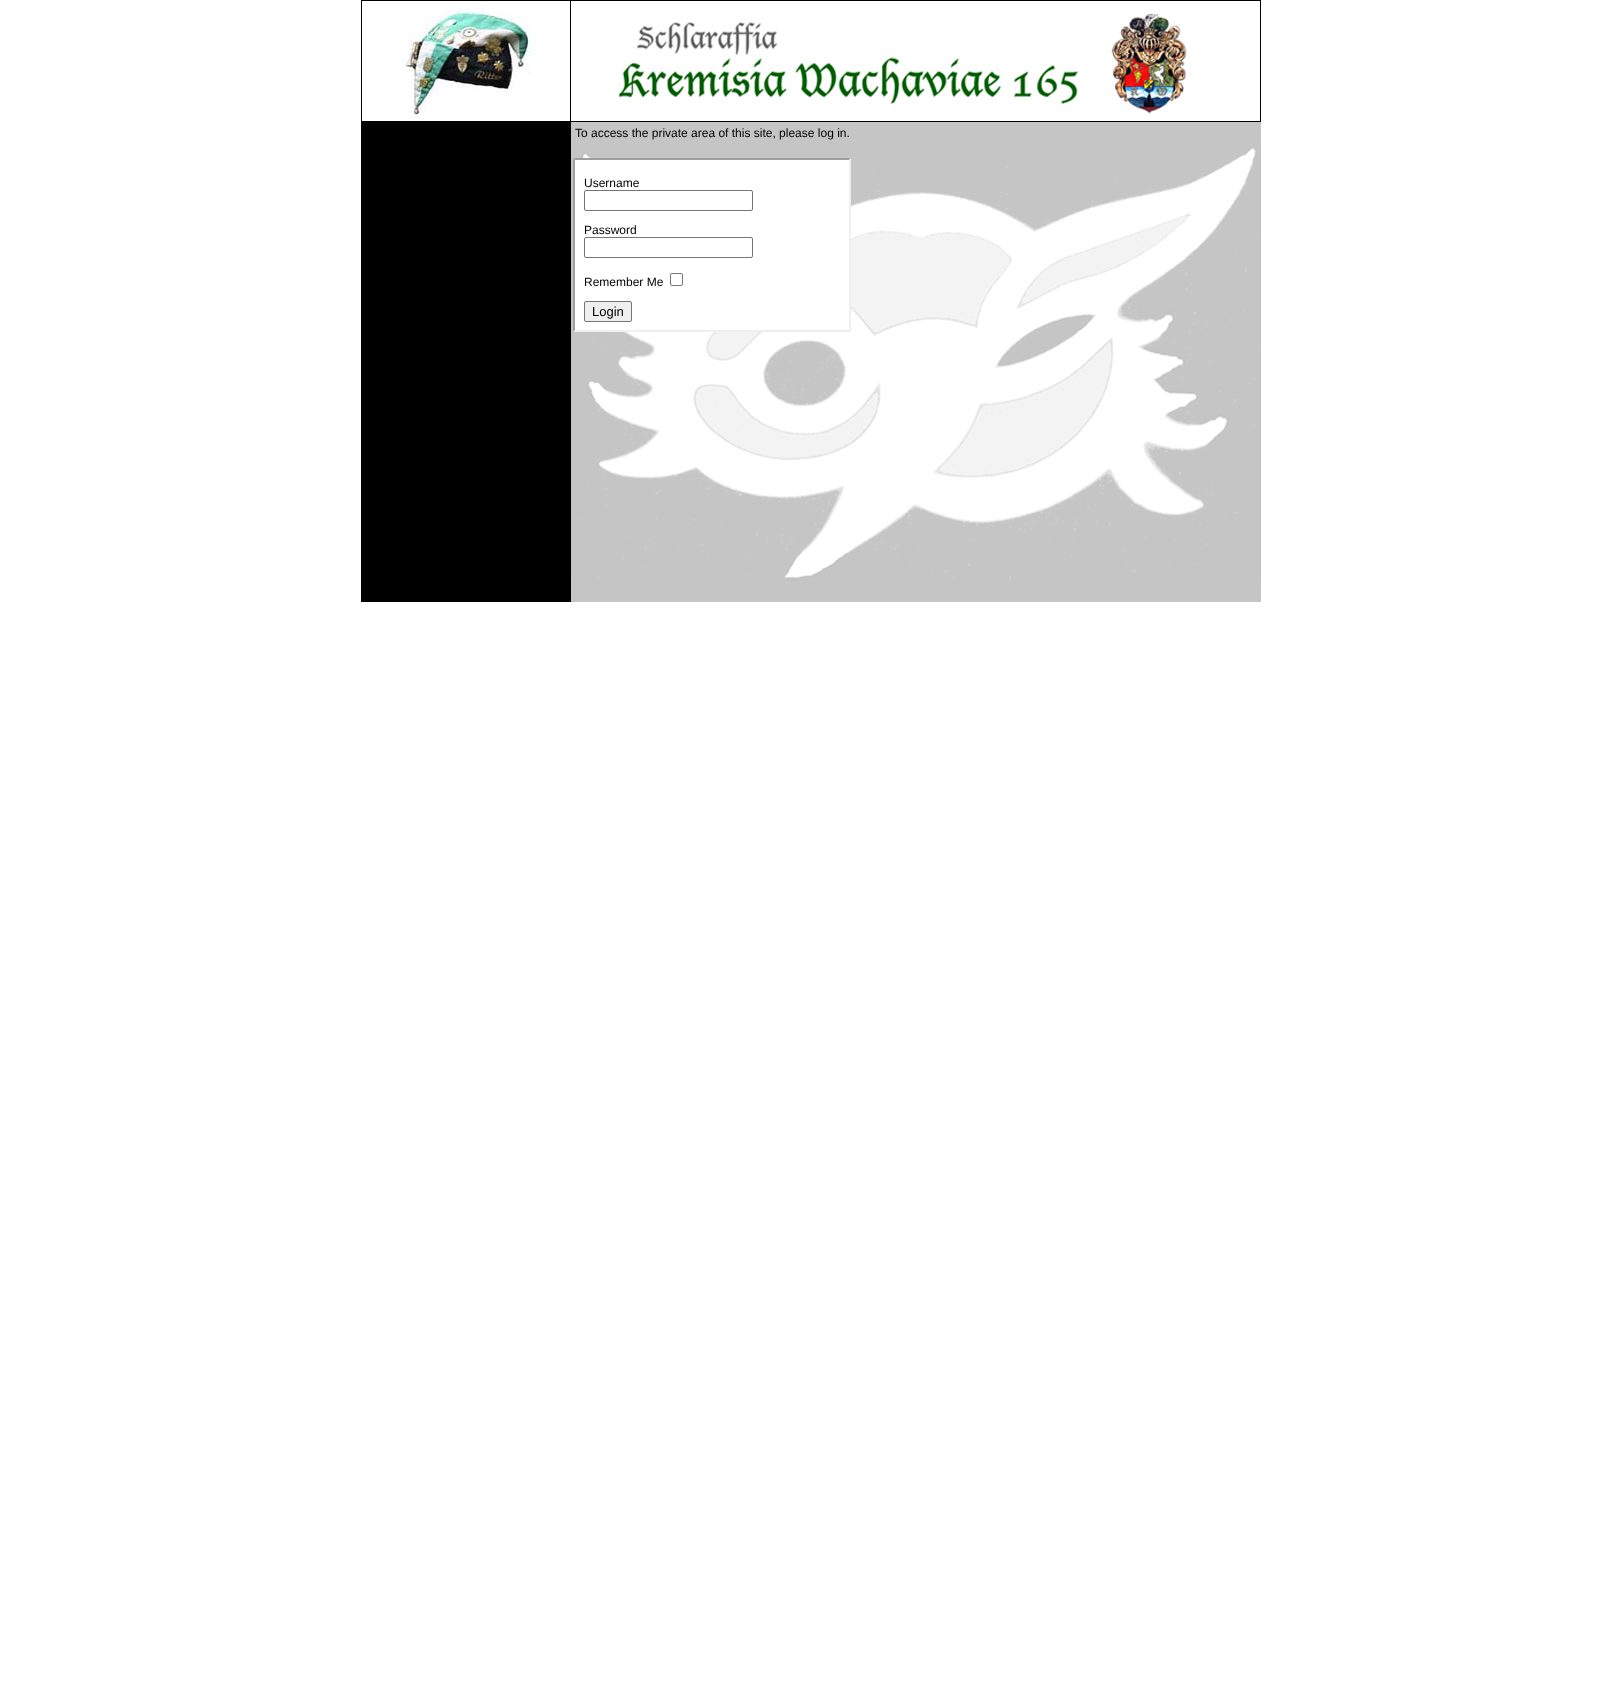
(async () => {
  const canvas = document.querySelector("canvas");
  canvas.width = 1621;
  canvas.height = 1682;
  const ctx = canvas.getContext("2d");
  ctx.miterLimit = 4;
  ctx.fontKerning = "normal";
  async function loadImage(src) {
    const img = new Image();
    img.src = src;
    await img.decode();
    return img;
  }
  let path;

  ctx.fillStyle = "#ffffff";
  ctx.fillRect(0, 0, 1621, 1682);
  ctx.drawImage(await loadImage("img/1.png"), 402, 6, 133, 113);
  ctx.strokeStyle = "#000000";
  ctx.strokeRect(361.5, 0.5, 209, 121);
  ctx.drawImage(await loadImage("img/2.png"), 618, 13, 569, 101);
  for (const [x, y, w, h, color] of [
    [571, 0, 690, 1, "#000000"],
    [1260, 0, 1, 122, "#000000"],
    [571, 121, 690, 1, "#000000"],
    [361, 122, 900, 480, "#000000"],
  ]) {
    ctx.fillStyle = color;
    ctx.fillRect(x, y, w, h);
  }
  ctx.drawImage(await loadImage("img/3.png"), 571, 122, 690, 480);
  ctx.fillStyle = "#ffffff";
  ctx.fillRect(573, 158, 278, 174);
  ctx.fillStyle = "#9f9f9f";
  path = new Path2D("M573 158H851L849 160H575Z");
  ctx.fill(path);
  ctx.fillStyle = "#efefef";
  path = new Path2D("M851 158V332L849 330V160Z");
  ctx.fill(path);
  path = new Path2D("M851 332H573L575 330H849Z");
  ctx.fill(path);
  ctx.fillStyle = "#9f9f9f";
  path = new Path2D("M573 332V158L575 160V330Z");
  ctx.fill(path);
  ctx.beginPath();
  ctx.roundRect(584.5, 190.5, 168, 20, 1.5);
  ctx.strokeStyle = "#767676";
  ctx.stroke();
  ctx.beginPath();
  ctx.roundRect(584.5, 237.5, 168, 20, 1.5);
  ctx.stroke();
  ctx.beginPath();
  ctx.roundRect(670.5, 273.5, 12, 12, 1.5);
  ctx.stroke();
  ctx.fillStyle = "#efefef";
  ctx.beginPath();
  ctx.roundRect(584.5, 301.5, 47, 20, 1.5);
  ctx.fill();
  ctx.stroke();
  ctx.font = "12px Liberation Sans";
  ctx.fillStyle = "#000000";
  for (const [text, x, y] of [
    ["To access the private area of this site, please log in.", 575, 137],
    ["Username", 584, 187],
    ["Password", 584, 234],
    ["Remember Me", 584, 286],
  ]) {
    ctx.fillText(text, x, y);
  }
  ctx.font = "13px Liberation Sans";
  ctx.fillText("Login", 592, 316);
})();
